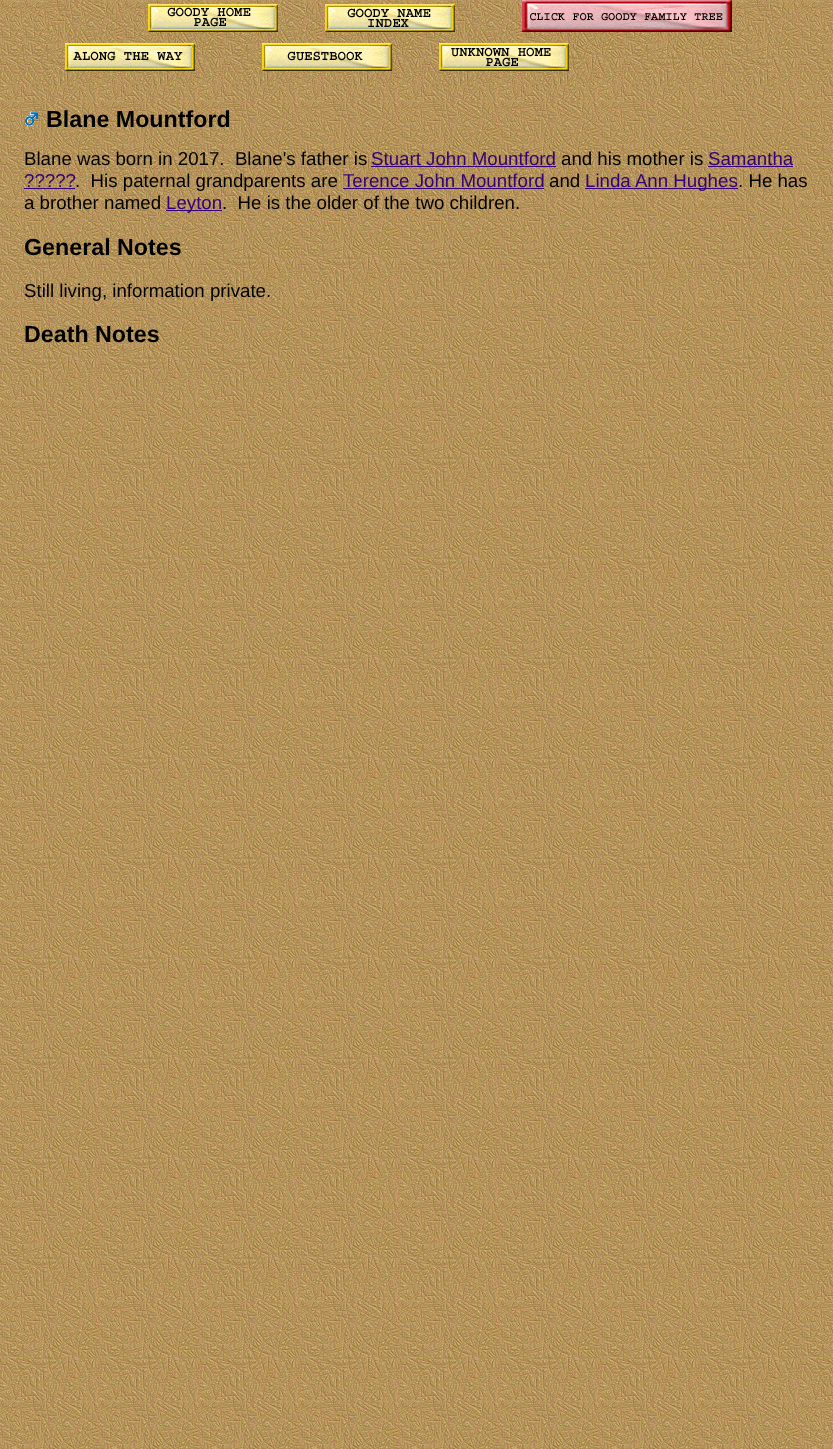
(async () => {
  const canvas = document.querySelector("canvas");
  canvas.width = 833;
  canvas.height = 1449;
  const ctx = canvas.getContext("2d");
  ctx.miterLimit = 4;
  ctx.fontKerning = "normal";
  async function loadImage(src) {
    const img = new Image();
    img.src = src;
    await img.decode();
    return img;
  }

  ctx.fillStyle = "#ffffff";
  ctx.fillRect(0, 0, 833, 1449);
  ctx.drawImage(await loadImage("img/1.png"), 0, 0, 833, 1449);
  ctx.drawImage(await loadImage("img/2.png"), 24, 0, 749, 85);
  ctx.drawImage(await loadImage("img/3.png"), 148, 4, 130, 28);
  ctx.drawImage(await loadImage("img/4.png"), 325, 4, 130, 28);
  ctx.drawImage(await loadImage("img/5.png"), 522, 0, 210, 32);
  ctx.drawImage(await loadImage("img/6.png"), 65, 43, 130, 28);
  ctx.drawImage(await loadImage("img/7.png"), 262, 43, 130, 28);
  ctx.drawImage(await loadImage("img/8.png"), 439, 43, 130, 28);
  ctx.drawImage(await loadImage("img/9.png"), 25, 112, 13, 14);
  for (const [x, y, w, h, color] of [
    [371, 166, 185, 1, "#330077"],
    [708, 166, 85, 1, "#330077"],
    [24, 188, 51, 1, "#330077"],
    [343, 188, 201, 1, "#330077"],
    [585, 188, 153, 1, "#330077"],
    [166, 210, 56, 1, "#330077"],
  ]) {
    ctx.fillStyle = color;
    ctx.fillRect(x, y, w, h);
  }
  ctx.font = "bold 23.25px Liberation Sans";
  ctx.fillStyle = "#000000";
  ctx.fillText("Blane Mountford", 46, 127);
  ctx.font = "18.7px Liberation Sans";
  ctx.fillText("Blane was born in 2017.  Blane's father is", 24, 165);
  ctx.fillStyle = "#330077";
  ctx.fillText("Stuart John Mountford", 371, 165);
  ctx.fillStyle = "#000000";
  ctx.fillText("and his mother is", 561, 165);
  ctx.fillStyle = "#330077";
  ctx.fillText("Samantha", 708, 165);
  ctx.fillText("?????", 24, 187);
  ctx.fillStyle = "#000000";
  ctx.fillText(".  His paternal grandparents are", 75, 187);
  ctx.fillStyle = "#330077";
  ctx.fillText("Terence John Mountford", 343, 187);
  ctx.fillStyle = "#000000";
  ctx.fillText("and", 549, 187);
  ctx.fillStyle = "#330077";
  ctx.fillText("Linda Ann Hughes", 585, 187);
  ctx.fillStyle = "#000000";
  ctx.fillText(". He has", 738, 187);
  ctx.fillText("a brother named", 24, 209);
  ctx.fillStyle = "#330077";
  ctx.fillText("Leyton", 166, 209);
  ctx.fillStyle = "#000000";
  ctx.fillText(".  He is the older of the two children.", 222, 209);
  ctx.font = "bold 23.25px Liberation Sans";
  ctx.fillText("General Notes", 24, 255);
  ctx.font = "18.7px Liberation Sans";
  ctx.fillText("Still living, information private.", 24, 297);
  ctx.font = "bold 23.25px Liberation Sans";
  ctx.fillText("Death Notes", 24, 342);
})();
